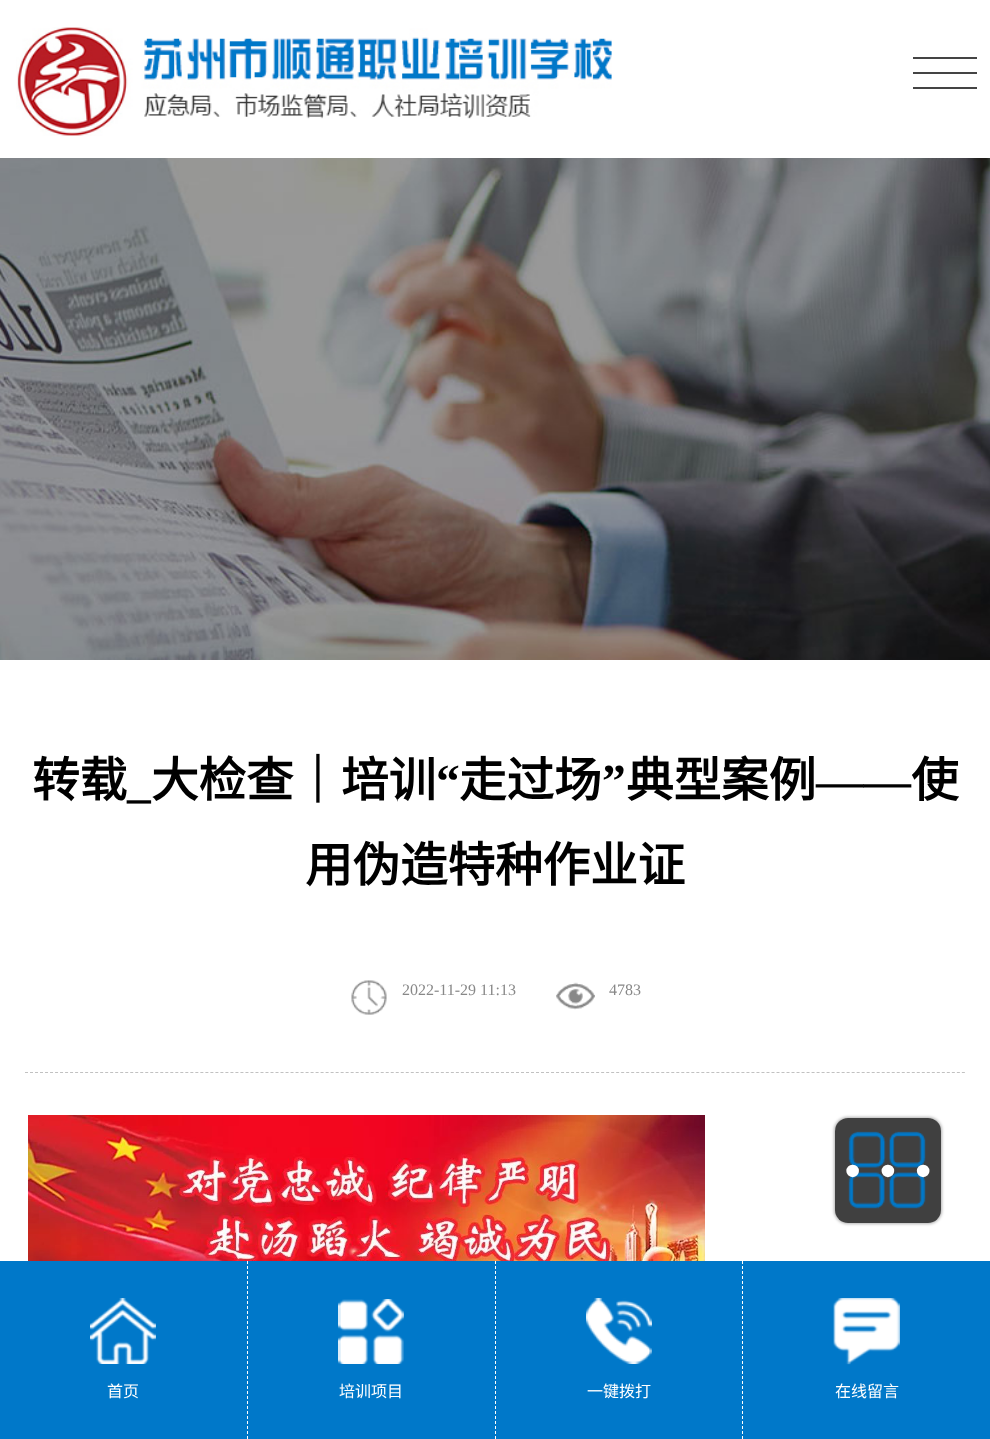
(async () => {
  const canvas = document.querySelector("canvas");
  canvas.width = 990;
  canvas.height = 1439;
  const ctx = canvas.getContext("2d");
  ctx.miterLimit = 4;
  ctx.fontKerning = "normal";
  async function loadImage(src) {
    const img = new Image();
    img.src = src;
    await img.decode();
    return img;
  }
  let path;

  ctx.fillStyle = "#ffffff";
  ctx.fillRect(0, 0, 990, 1439);
  ctx.drawImage(await loadImage("img/1.png"), 16, 27, 596, 109);
  for (const [x, y, w, h, color] of [
    [913, 57, 64, 2, "#444444"],
    [913, 72, 64, 2, "#444444"],
    [913, 87, 64, 2, "#444444"],
  ]) {
    ctx.fillStyle = color;
    ctx.fillRect(x, y, w, h);
  }
  ctx.drawImage(await loadImage("img/2.png"), 0, 158, 990, 502);
  path = new Path2D("M25 1072.5H965");
  ctx.strokeStyle = "#c1c1c1";
  ctx.setLineDash([3, 2.01]);
  ctx.stroke(path);
  ctx.drawImage(await loadImage("img/3.png"), 351, 980, 36, 35);
  ctx.drawImage(await loadImage("img/4.png"), 556, 982, 39, 28);
  ctx.drawImage(await loadImage("img/5.png"), 28, 1115, 677, 146);
  ctx.save();
  path = new Path2D("M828 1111H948V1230H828ZM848 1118H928C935 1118 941 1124 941 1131V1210C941 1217 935 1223 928 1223H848C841 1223 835 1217 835 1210V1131C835 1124 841 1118 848 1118Z");
  ctx.clip(path, "evenodd");
  ctx.fillStyle = "rgba(0, 0, 0, 0.3)";
  ctx.filter = "blur(1.5px)";
  ctx.beginPath();
  ctx.roundRect(834, 1117, 108, 107, 14);
  ctx.fill();
  ctx.filter = "none";
  ctx.restore();
  ctx.fillStyle = "rgba(0, 0, 0, 0.75)";
  ctx.beginPath();
  ctx.roundRect(835, 1118, 106, 105, 13);
  ctx.fill();
  ctx.drawImage(await loadImage("img/6.png"), 848, 1131, 78, 78);
  ctx.fillStyle = "#0078c9";
  ctx.fillRect(0, 1261, 990, 178);
  path = new Path2D("M247.5 1261V1439");
  ctx.strokeStyle = "#ffffff";
  ctx.setLineDash([3, 2]);
  ctx.stroke(path);
  ctx.drawImage(await loadImage("img/7.png"), 90, 1298, 66, 66);
  path = new Path2D("M495.5 1261V1439");
  ctx.stroke(path);
  ctx.drawImage(await loadImage("img/8.png"), 338, 1299, 66, 65);
  path = new Path2D("M742.5 1261V1439");
  ctx.stroke(path);
  ctx.drawImage(await loadImage("img/9.png"), 586, 1298, 66, 66);
  ctx.drawImage(await loadImage("img/10.png"), 833, 1298, 67, 67);
  ctx.font = "bold 47.5px Noto Sans CJK SC";
  ctx.fillStyle = "#000000";
  ctx.fillText("转载", 32, 797);
  ctx.fillText("大检查｜培训", 151, 797);
  ctx.font = "bold 47.5px Liberation Serif";
  ctx.fillText("“", 436, 797);
  ctx.font = "bold 47.5px Noto Sans CJK SC";
  ctx.fillText("走过场", 459, 797);
  ctx.font = "bold 47.5px Liberation Serif";
  ctx.fillText("”", 602, 797);
  ctx.font = "bold 47.5px Noto Sans CJK SC";
  ctx.fillText("典型案例", 626, 797);
  ctx.font = "bold 47.5px Liberation Serif";
  ctx.fillText("——", 816, 797);
  ctx.font = "bold 47.5px Noto Sans CJK SC";
  ctx.fillText("使", 911, 797);
  ctx.font = "bold 47.5px Liberation Serif";
  ctx.fillText("_", 127, 797);
  ctx.font = "bold 47.5px Noto Sans CJK SC";
  ctx.fillText("用伪造特种作业证", 305, 882);
  ctx.font = "16px Liberation Serif";
  ctx.fillStyle = "#888888";
  ctx.fillText("2022-11-29 11:13", 402, 995);
  ctx.fillText("4783", 609, 995);
  ctx.font = "106px Liberation Serif";
  ctx.fillStyle = "#ffffff";
  ctx.fillText("···", 835, 1206);
  ctx.font = "16px Noto Sans CJK SC";
  for (const [text, x, y] of [
    ["首页", 107, 1397],
    ["培训项目", 339, 1397],
    ["一键拨打", 587, 1397],
    ["在线留言", 835, 1397],
  ]) {
    ctx.fillText(text, x, y);
  }
})();
